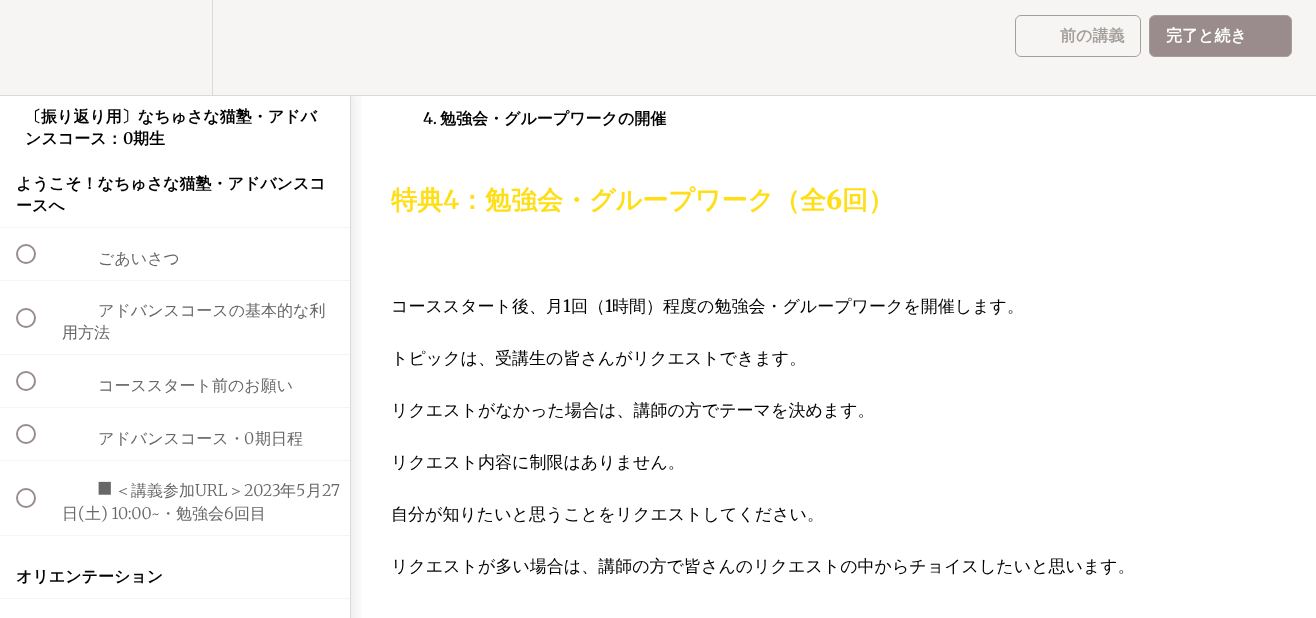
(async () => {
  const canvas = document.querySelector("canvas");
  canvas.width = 1316;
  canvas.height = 618;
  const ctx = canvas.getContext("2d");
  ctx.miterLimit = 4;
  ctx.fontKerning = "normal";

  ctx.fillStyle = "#ffffff";
  ctx.fillRect(0, 0, 1316, 618);
  ctx.save();
  ctx.beginPath();
  ctx.rect(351, 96, 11, 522);
  ctx.clip();
  ctx.fillStyle = "rgba(32, 39, 45, 0.15)";
  ctx.filter = "blur(10px)";
  ctx.beginPath();
  ctx.rect(0, 87, 351, 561);
  ctx.fill();
  ctx.filter = "none";
  ctx.restore();
  for (const [x, y, w, h, color] of [
    [0, 0, 1316, 95, "#f7f5f4"],
    [0, 95, 1316, 1, "#d7dadb"],
    [212, 0, 1, 95, "#d7dadb"],
  ]) {
    ctx.fillStyle = color;
    ctx.fillRect(x, y, w, h);
  }
  ctx.beginPath();
  ctx.roundRect(1015.5, 15.5, 125, 41, 5.5);
  ctx.strokeStyle = "#a49f99";
  ctx.stroke();
  ctx.fillStyle = "#9a8c8c";
  ctx.beginPath();
  ctx.roundRect(1149.5, 15.5, 142, 41, 5.5);
  ctx.fill();
  ctx.stroke();
  for (const [x, y, w, h, color] of [
    [350, 96, 1, 522, "#d7dadb"],
    [0, 227, 350, 1, "#f5f4f4"],
    [0, 280, 350, 1, "#f5f4f4"],
  ]) {
    ctx.fillStyle = color;
    ctx.fillRect(x, y, w, h);
  }
  ctx.beginPath();
  ctx.arc(26, 254, 9, 0, Math.PI * 2);
  ctx.strokeStyle = "#9a8c8c";
  ctx.lineWidth = 2;
  ctx.stroke();
  ctx.fillRect(0, 354, 350, 1);
  ctx.beginPath();
  ctx.arc(26, 318, 9, 0, Math.PI * 2);
  ctx.stroke();
  ctx.fillRect(0, 407, 350, 1);
  ctx.beginPath();
  ctx.arc(26, 381, 9, 0, Math.PI * 2);
  ctx.stroke();
  ctx.fillRect(0, 460, 350, 1);
  ctx.beginPath();
  ctx.arc(26, 434, 9, 0, Math.PI * 2);
  ctx.stroke();
  ctx.fillRect(0, 535, 350, 1);
  ctx.beginPath();
  ctx.arc(26, 498, 9, 0, Math.PI * 2);
  ctx.stroke();
  ctx.fillRect(0, 598, 350, 1);
  ctx.font = "bold 16px WenQuanYi Zen Hei";
  ctx.fillStyle = "#a49f99";
  ctx.fillText("前の講義", 1060, 41);
  ctx.fillStyle = "#ffffff";
  ctx.fillText("完了と続き", 1166, 41);
  ctx.fillStyle = "#000000";
  ctx.fillText("〔振り返り用〕なちゅさな猫塾・アドバ", 25, 122);
  ctx.fillText("ンスコース：", 25, 144);
  ctx.font = "600 16px Merriweather";
  ctx.fillText("0", 123, 144);
  ctx.font = "bold 16px WenQuanYi Zen Hei";
  for (const [text, x, y] of [
    ["期生", 133, 144],
    ["ようこそ！なちゅさな猫塾・アドバンスコ", 16, 189],
    ["ースへ", 16, 211],
  ]) {
    ctx.fillText(text, x, y);
  }
  ctx.font = "500 16px WenQuanYi Zen Hei";
  ctx.fillStyle = "#676767";
  for (const [text, x, y] of [
    ["ごあいさつ", 98, 264],
    ["アドバンスコースの基本的な利", 98, 316],
    ["用方法", 62, 338],
    ["コーススタート前のお願い", 98, 391],
    ["アドバンスコース・", 98, 444],
  ]) {
    ctx.fillText(text, x, y);
  }
  ctx.font = "300 16px Merriweather";
  ctx.fillText("0", 244, 444);
  ctx.font = "500 16px WenQuanYi Zen Hei";
  ctx.fillText("期日程", 255, 444);
  ctx.font = "300 16px Merriweather";
  ctx.fillText("■", 98, 496);
  ctx.font = "500 16px WenQuanYi Zen Hei";
  ctx.fillText("＜講義参加", 115, 496);
  ctx.font = "300 16px Merriweather";
  ctx.fillText("URL", 195, 496);
  ctx.font = "500 16px WenQuanYi Zen Hei";
  ctx.fillText("＞", 228, 496);
  ctx.font = "300 16px Merriweather";
  ctx.fillText("2023", 244, 496);
  ctx.font = "500 16px WenQuanYi Zen Hei";
  ctx.fillText("年", 280, 496);
  ctx.font = "300 16px Merriweather";
  ctx.fillText("5", 296, 496);
  ctx.font = "500 16px WenQuanYi Zen Hei";
  ctx.fillText("月", 306, 496);
  ctx.font = "300 16px Merriweather";
  ctx.fillText("27", 322, 496);
  ctx.font = "500 16px WenQuanYi Zen Hei";
  ctx.fillText("日", 62, 519);
  ctx.font = "300 16px Merriweather";
  ctx.fillText("(", 78, 519);
  ctx.font = "500 16px WenQuanYi Zen Hei";
  ctx.fillText("土", 85, 519);
  ctx.font = "300 16px Merriweather";
  ctx.fillText(") 10:00~", 101, 519);
  ctx.font = "500 16px WenQuanYi Zen Hei";
  ctx.fillText("・勉強会", 160, 519);
  ctx.font = "300 16px Merriweather";
  ctx.fillText("6", 224, 519);
  ctx.font = "500 16px WenQuanYi Zen Hei";
  ctx.fillText("回目", 234, 519);
  ctx.font = "bold 16px WenQuanYi Zen Hei";
  ctx.fillStyle = "#000000";
  ctx.fillText("オリエンテーション", 16, 582);
  ctx.font = "600 16px Merriweather";
  ctx.fillText("4.", 423, 124);
  ctx.font = "bold 16px WenQuanYi Zen Hei";
  ctx.fillText("勉強会・グループワークの開催", 440, 124);
  ctx.font = "bold 26px WenQuanYi Zen Hei";
  ctx.fillStyle = "#ffde16";
  ctx.fillText("特典", 391, 209);
  ctx.font = "600 26px Merriweather";
  ctx.fillText("4", 443, 209);
  ctx.font = "bold 26px WenQuanYi Zen Hei";
  ctx.fillText("：勉強会・グループワーク（全", 459, 209);
  ctx.font = "900 26px Merriweather";
  ctx.fillText("6", 826, 209);
  ctx.font = "bold 26px WenQuanYi Zen Hei";
  ctx.fillText("回）", 842, 209);
  ctx.font = "500 17px WenQuanYi Zen Hei";
  ctx.fillStyle = "#000000";
  ctx.fillText("コーススタート後、月", 391, 312);
  ctx.font = "17px Merriweather";
  ctx.fillText("1", 563, 312);
  ctx.font = "500 17px WenQuanYi Zen Hei";
  ctx.fillText("回（", 571, 312);
  ctx.font = "17px Merriweather";
  ctx.fillText("1", 605, 312);
  ctx.font = "500 17px WenQuanYi Zen Hei";
  for (const [text, x, y] of [
    ["時間）程度の勉強会・グループワークを開催します。", 612, 312],
    ["トピックは、受講生の皆さんがリクエストできます。", 391, 364],
    ["リクエストがなかった場合は、講師の方でテーマを決めます。", 391, 416],
    ["リクエスト内容に制限はありません。", 391, 468],
    ["自分が知りたいと思うことをリクエストしてください。", 391, 520],
    ["リクエストが多い場合は、講師の方で皆さんのリクエストの中からチョイスしたいと思います。", 391, 572],
  ]) {
    ctx.fillText(text, x, y);
  }
})();
